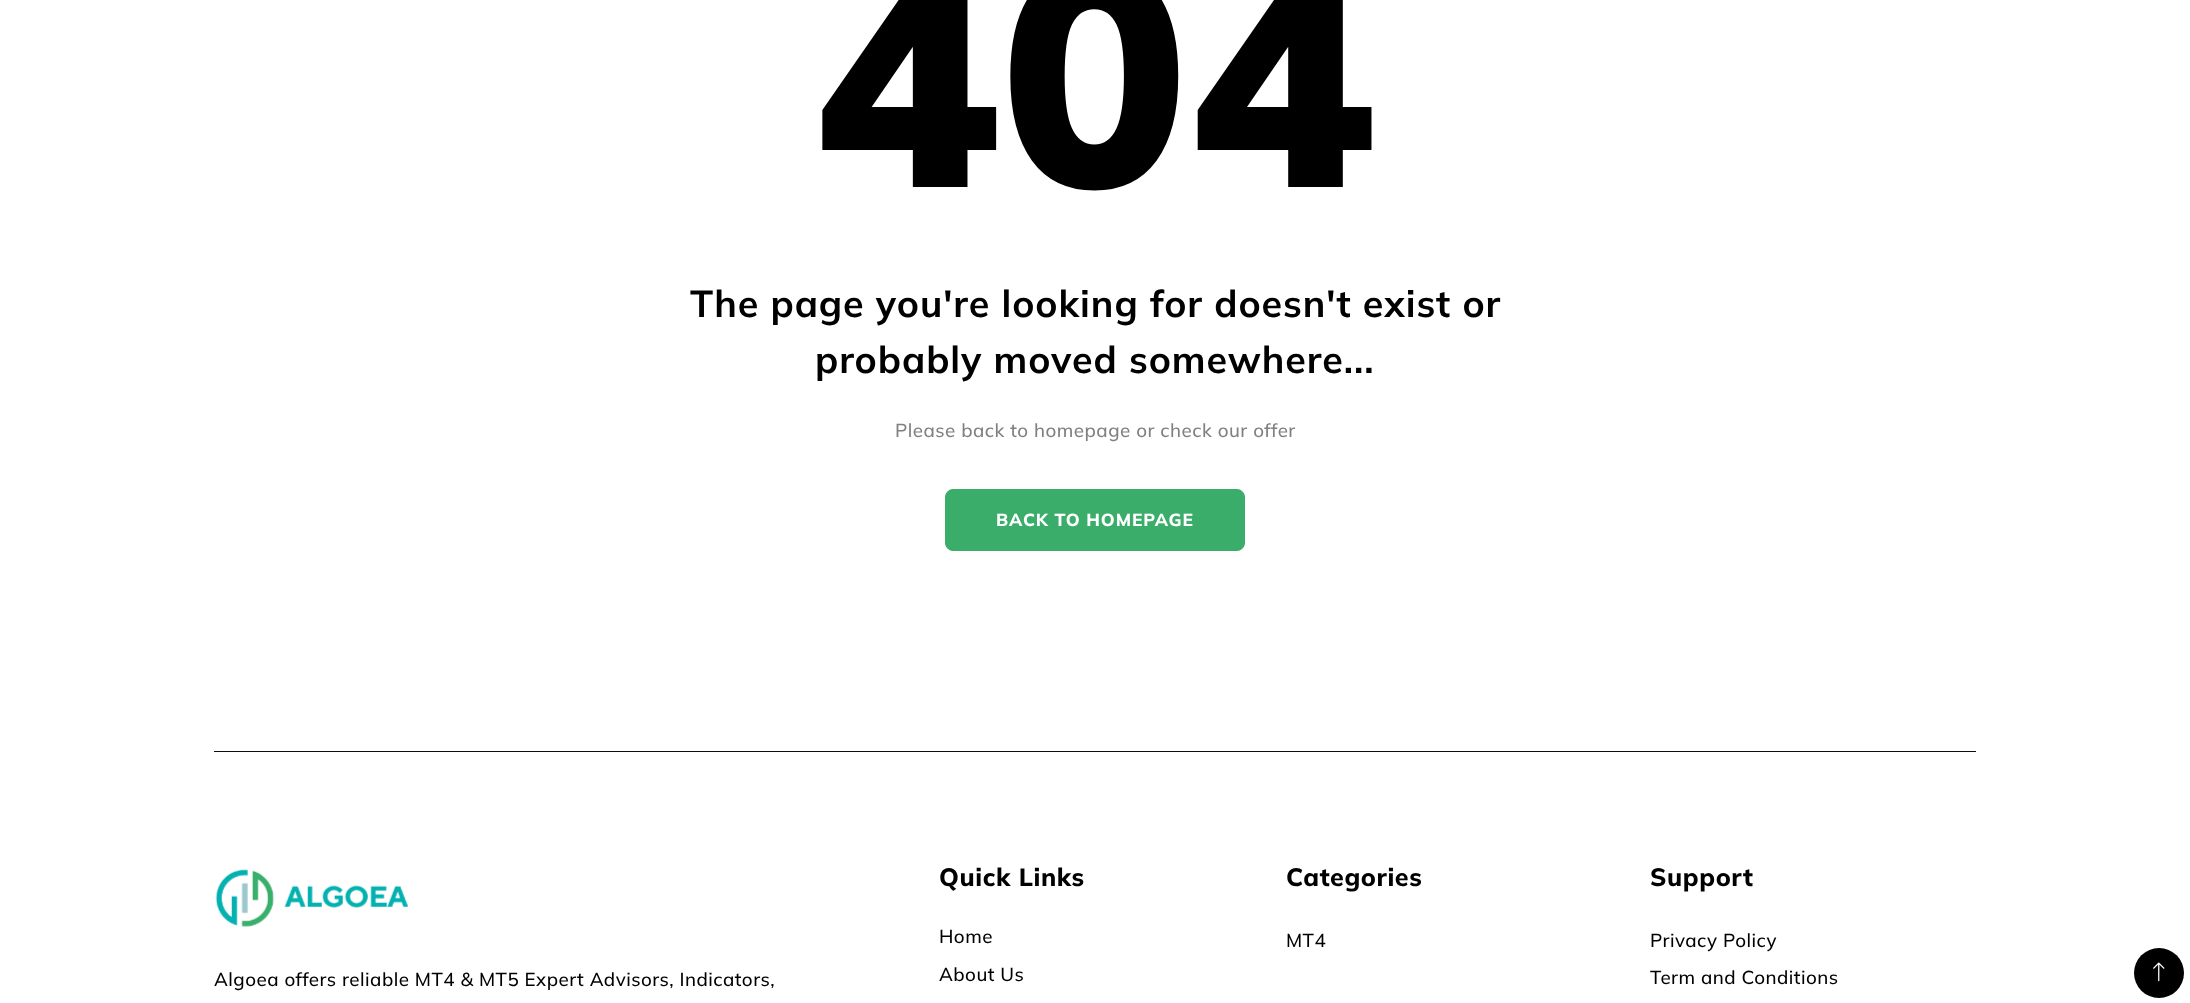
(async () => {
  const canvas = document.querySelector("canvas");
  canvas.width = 2190;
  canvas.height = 1003;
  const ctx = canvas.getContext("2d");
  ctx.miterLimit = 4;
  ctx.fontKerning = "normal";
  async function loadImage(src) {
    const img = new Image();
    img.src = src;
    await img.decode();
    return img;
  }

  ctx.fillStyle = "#ffffff";
  ctx.fillRect(0, 0, 2190, 1003);
  ctx.fillStyle = "#3bad6b";
  ctx.beginPath();
  ctx.roundRect(945.5, 489.5, 299, 61, 7.5);
  ctx.fill();
  ctx.strokeStyle = "#3bad6b";
  ctx.stroke();
  ctx.fillStyle = "#0c0d0e";
  ctx.fillRect(214, 751, 1762, 1);
  ctx.drawImage(await loadImage("img/1.png"), 215, 869, 194, 58);
  ctx.fillStyle = "#000000";
  ctx.beginPath();
  ctx.arc(2159, 973, 25, 0, Math.PI * 2);
  ctx.fill();
  ctx.drawImage(await loadImage("img/2.png"), 2153, 962, 12, 20);
  ctx.letterSpacing = "0.47px";
  ctx.font = "900 312px Mulish";
  ctx.fillText("404", 813, 187);
  ctx.letterSpacing = "0.95px";
  ctx.font = "bold 37.5px Mulish";
  ctx.fillText("The page you're looking for doesn't exist or", 690, 317);
  ctx.fillText("probably moved somewhere...", 815, 373);
  ctx.letterSpacing = "0.47px";
  ctx.font = "500 18.75px Mulish";
  ctx.fillStyle = "#808080";
  ctx.fillText("Please back to homepage or check our offer", 895, 437);
  ctx.letterSpacing = "0.9px";
  ctx.font = "800 17.5px Mulish";
  ctx.fillStyle = "#ffffff";
  ctx.fillText("BACK TO HOMEPAGE", 996, 526);
  ctx.letterSpacing = "0.47px";
  ctx.font = "500 18.75px Mulish";
  ctx.fillStyle = "#000000";
  ctx.fillText("Algoea offers reliable MT4 & MT5 Expert Advisors, Indicators,", 214, 986);
  ctx.letterSpacing = "0.6px";
  ctx.font = "800 25px Mulish";
  ctx.fillText("Quick Links", 939, 886);
  ctx.letterSpacing = "0.47px";
  ctx.font = "500 18.75px Mulish";
  ctx.fillText("Home", 939, 943);
  ctx.fillText("About Us", 939, 981);
  ctx.letterSpacing = "0.6px";
  ctx.font = "800 25px Mulish";
  ctx.fillText("Categories", 1286, 886);
  ctx.letterSpacing = "0.47px";
  ctx.font = "500 18.75px Mulish";
  ctx.fillText("MT4", 1286, 947);
  ctx.letterSpacing = "0.6px";
  ctx.font = "800 25px Mulish";
  ctx.fillText("Support", 1650, 886);
  ctx.letterSpacing = "0.47px";
  ctx.font = "500 18.75px Mulish";
  ctx.fillText("Privacy Policy", 1650, 947);
  ctx.fillText("Term and Conditions", 1650, 984);
})();
